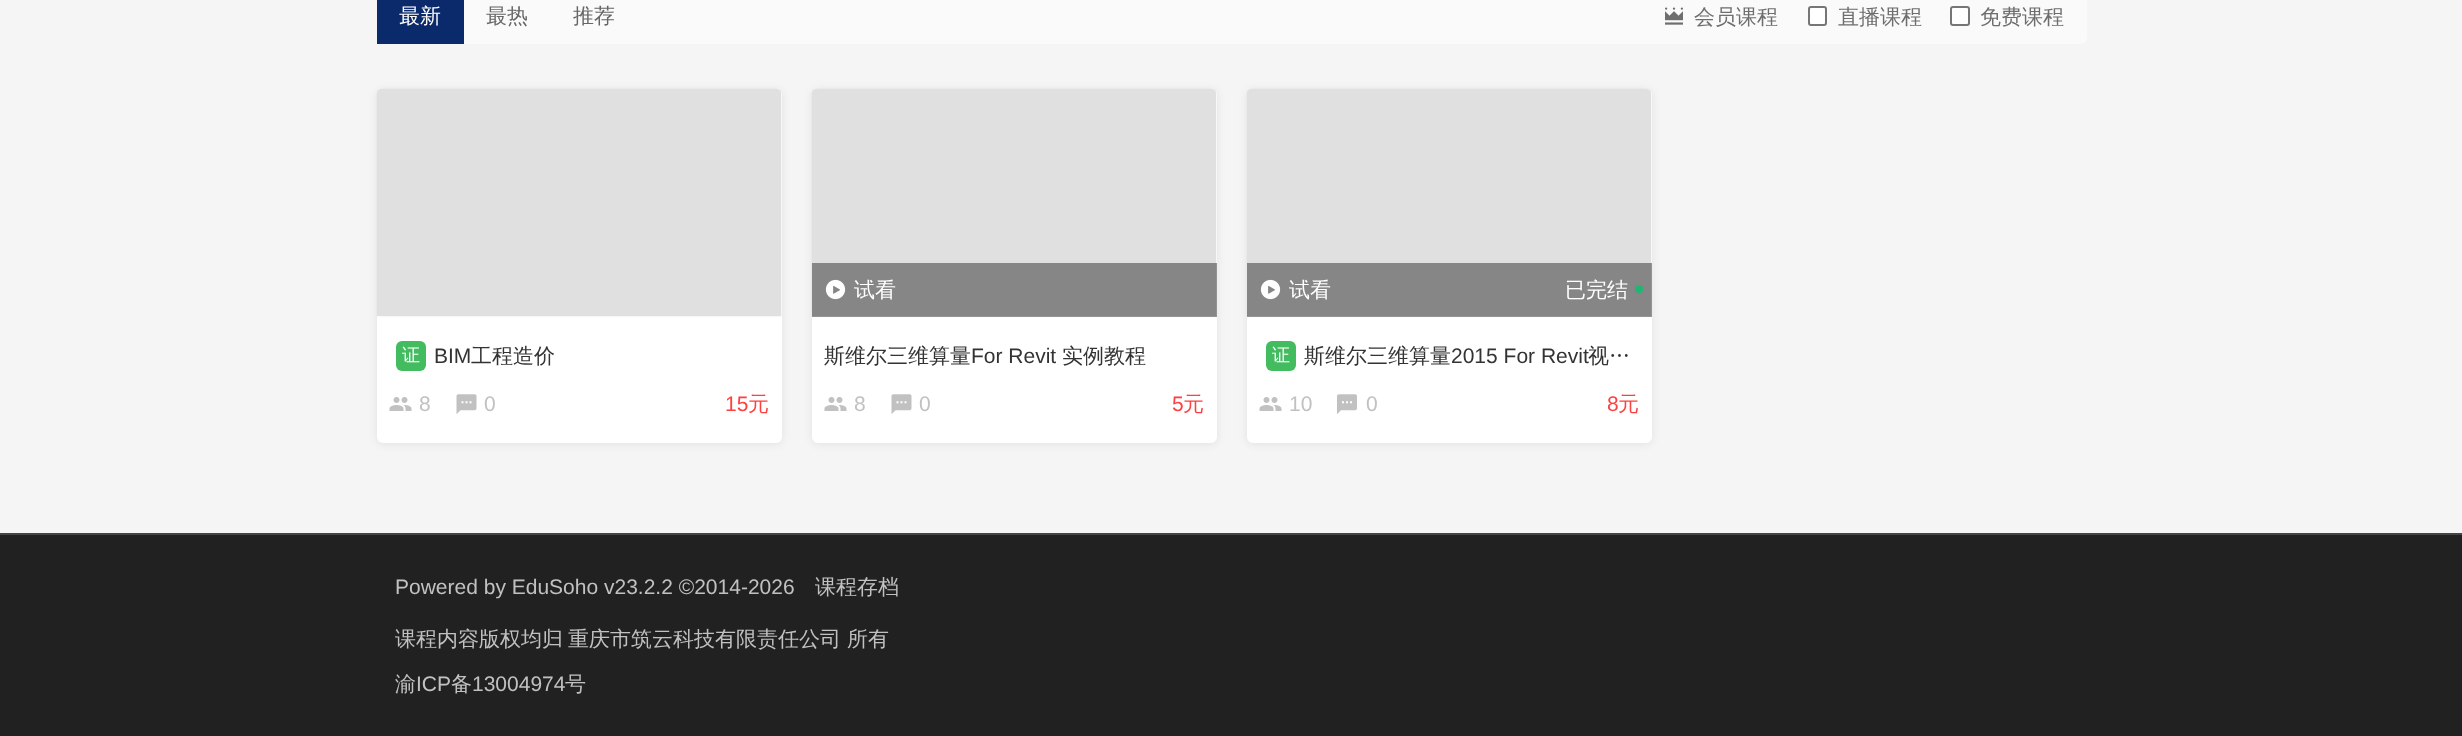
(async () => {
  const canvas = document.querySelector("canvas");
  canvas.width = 2462;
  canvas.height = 736;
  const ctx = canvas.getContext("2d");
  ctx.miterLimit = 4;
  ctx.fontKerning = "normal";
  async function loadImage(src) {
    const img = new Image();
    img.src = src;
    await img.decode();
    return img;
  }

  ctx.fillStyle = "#f5f5f5";
  ctx.fillRect(0, 0, 2462, 736);
  ctx.fillStyle = "#fafafa";
  ctx.beginPath();
  ctx.roundRect(377, -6, 1710, 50, 6);
  ctx.fill();
  ctx.fillStyle = "#0a2a6b";
  ctx.fillRect(377, 0, 87, 44);
  ctx.drawImage(await loadImage("img/1.png"), 1665, 7, 18, 18);
  ctx.fillStyle = "#ffffff";
  ctx.beginPath();
  ctx.roundRect(1809, 7, 17, 18, 2);
  ctx.fill();
  ctx.strokeStyle = "#767676";
  ctx.lineWidth = 2;
  ctx.stroke();
  ctx.beginPath();
  ctx.roundRect(1951, 7, 18, 18, 2);
  ctx.fill();
  ctx.stroke();
  ctx.fillStyle = "rgba(0, 0, 0, 0.08)";
  ctx.filter = "blur(4.5px)";
  ctx.beginPath();
  ctx.roundRect(377, 90, 405, 354, 6);
  ctx.fill();
  ctx.filter = "none";
  ctx.fillStyle = "#ffffff";
  ctx.beginPath();
  ctx.roundRect(377, 89, 405, 354, 6);
  ctx.fill();
  ctx.drawImage(await loadImage("img/2.png"), 376, 88, 406, 229);
  ctx.fillStyle = "#43bc60";
  ctx.beginPath();
  ctx.roundRect(396, 341, 30, 30, 6);
  ctx.fill();
  ctx.drawImage(await loadImage("img/3.png"), 389, 397, 23, 14);
  ctx.drawImage(await loadImage("img/4.png"), 456, 394, 21, 20);
  ctx.fillStyle = "rgba(0, 0, 0, 0.08)";
  ctx.filter = "blur(4.5px)";
  ctx.beginPath();
  ctx.roundRect(812, 90, 405, 354, 6);
  ctx.fill();
  ctx.filter = "none";
  ctx.fillStyle = "#ffffff";
  ctx.beginPath();
  ctx.roundRect(812, 89, 405, 354, 6);
  ctx.fill();
  ctx.drawImage(await loadImage("img/2.png"), 811, 88, 406, 229);
  ctx.fillStyle = "rgba(0, 0, 0, 0.4)";
  ctx.fillRect(812, 263, 405, 54);
  ctx.drawImage(await loadImage("img/5.png"), 825, 279, 21, 21);
  ctx.drawImage(await loadImage("img/3.png"), 824, 397, 23, 14);
  ctx.drawImage(await loadImage("img/4.png"), 891, 394, 21, 20);
  ctx.fillStyle = "rgba(0, 0, 0, 0.08)";
  ctx.filter = "blur(4.5px)";
  ctx.beginPath();
  ctx.roundRect(1247, 90, 405, 354, 6);
  ctx.fill();
  ctx.filter = "none";
  ctx.fillStyle = "#ffffff";
  ctx.beginPath();
  ctx.roundRect(1247, 89, 405, 354, 6);
  ctx.fill();
  ctx.drawImage(await loadImage("img/2.png"), 1246, 88, 406, 229);
  ctx.fillStyle = "rgba(0, 0, 0, 0.4)";
  ctx.fillRect(1247, 263, 405, 54);
  ctx.drawImage(await loadImage("img/5.png"), 1260, 279, 21, 21);
  ctx.fillStyle = "#20b573";
  ctx.beginPath();
  ctx.arc(1639, 289, 4, 0, Math.PI * 2);
  ctx.fill();
  ctx.fillStyle = "#43bc60";
  ctx.beginPath();
  ctx.roundRect(1266, 341, 30, 30, 6);
  ctx.fill();
  ctx.drawImage(await loadImage("img/3.png"), 1259, 397, 23, 14);
  ctx.drawImage(await loadImage("img/6.png"), 1337, 394, 20, 20);
  ctx.fillStyle = "#212121";
  ctx.fillRect(0, 535, 2462, 201);
  ctx.fillStyle = "#444444";
  ctx.fillRect(0, 533, 2462, 2);
  ctx.font = "500 21px WenQuanYi Zen Hei";
  ctx.fillStyle = "#ffffff";
  ctx.fillText("最新", 399, 23);
  ctx.fillStyle = "#666666";
  ctx.fillText("最热", 486, 23);
  ctx.fillText("推荐", 573, 23);
  ctx.fillStyle = "#6e6e6e";
  for (const [text, x, y] of [
    ["会员课程", 1694, 24],
    ["直播课程", 1838, 24],
    ["免费课程", 1980, 24],
  ]) {
    ctx.fillText(text, x, y);
  }
  ctx.font = "500 18px WenQuanYi Zen Hei";
  ctx.fillStyle = "#ffffff";
  ctx.fillText("证", 402, 361);
  ctx.font = "21px Liberation Sans";
  ctx.fillStyle = "#333333";
  ctx.fillText("BIM", 434, 363);
  ctx.font = "500 21px WenQuanYi Zen Hei";
  ctx.fillText("工程造价", 471, 363);
  ctx.font = "21px Liberation Sans";
  ctx.fillStyle = "#c1c1c1";
  ctx.fillText("8", 419, 411);
  ctx.fillText("0", 484, 411);
  ctx.fillStyle = "#fe4040";
  ctx.fillText("15", 725, 411);
  ctx.font = "500 21px WenQuanYi Zen Hei";
  ctx.fillText("元", 748, 411);
  ctx.fillStyle = "#ffffff";
  ctx.fillText("试看", 854, 297);
  ctx.fillStyle = "#333333";
  ctx.fillText("斯维尔三维算量", 824, 363);
  ctx.font = "21px Liberation Sans";
  ctx.fillText("For Revit", 971, 363);
  ctx.font = "500 21px WenQuanYi Zen Hei";
  ctx.fillText("实例教程", 1062, 363);
  ctx.font = "21px Liberation Sans";
  ctx.fillStyle = "#c1c1c1";
  ctx.fillText("8", 854, 411);
  ctx.fillText("0", 919, 411);
  ctx.fillStyle = "#fe4040";
  ctx.fillText("5", 1172, 411);
  ctx.font = "500 21px WenQuanYi Zen Hei";
  ctx.fillText("元", 1183, 411);
  ctx.fillStyle = "#ffffff";
  ctx.fillText("试看", 1289, 297);
  ctx.fillText("已完结", 1565, 297);
  ctx.font = "500 18px WenQuanYi Zen Hei";
  ctx.fillText("证", 1272, 361);
  ctx.font = "500 21px WenQuanYi Zen Hei";
  ctx.fillStyle = "#333333";
  ctx.fillText("斯维尔三维算量", 1304, 363);
  ctx.font = "21px Liberation Sans";
  ctx.fillText("2015 For Revit", 1451, 363);
  ctx.font = "500 21px WenQuanYi Zen Hei";
  ctx.fillText("视…", 1588, 363);
  ctx.font = "21px Liberation Sans";
  ctx.fillStyle = "#c1c1c1";
  ctx.fillText("10", 1289, 411);
  ctx.fillText("0", 1366, 411);
  ctx.fillStyle = "#fe4040";
  ctx.fillText("8", 1607, 411);
  ctx.font = "500 21px WenQuanYi Zen Hei";
  ctx.fillText("元", 1618, 411);
  ctx.font = "21px Liberation Sans";
  ctx.fillStyle = "#c1c1c1";
  ctx.fillText("Powered by EduSoho v23.2.2 ©2014-2026", 395, 594);
  ctx.font = "500 21px WenQuanYi Zen Hei";
  for (const [text, x, y] of [
    ["课程存档", 815, 594],
    ["课程内容版权均归", 395, 646],
    ["重庆市筑云科技有限责任公司", 568, 646],
    ["所有", 847, 646],
    ["渝", 395, 691],
  ]) {
    ctx.fillText(text, x, y);
  }
  ctx.font = "21px Liberation Sans";
  ctx.fillText("ICP", 416, 691);
  ctx.font = "500 21px WenQuanYi Zen Hei";
  ctx.fillText("备", 451, 691);
  ctx.font = "21px Liberation Sans";
  ctx.fillText("13004974", 472, 691);
  ctx.font = "500 21px WenQuanYi Zen Hei";
  ctx.fillText("号", 565, 691);
})();
